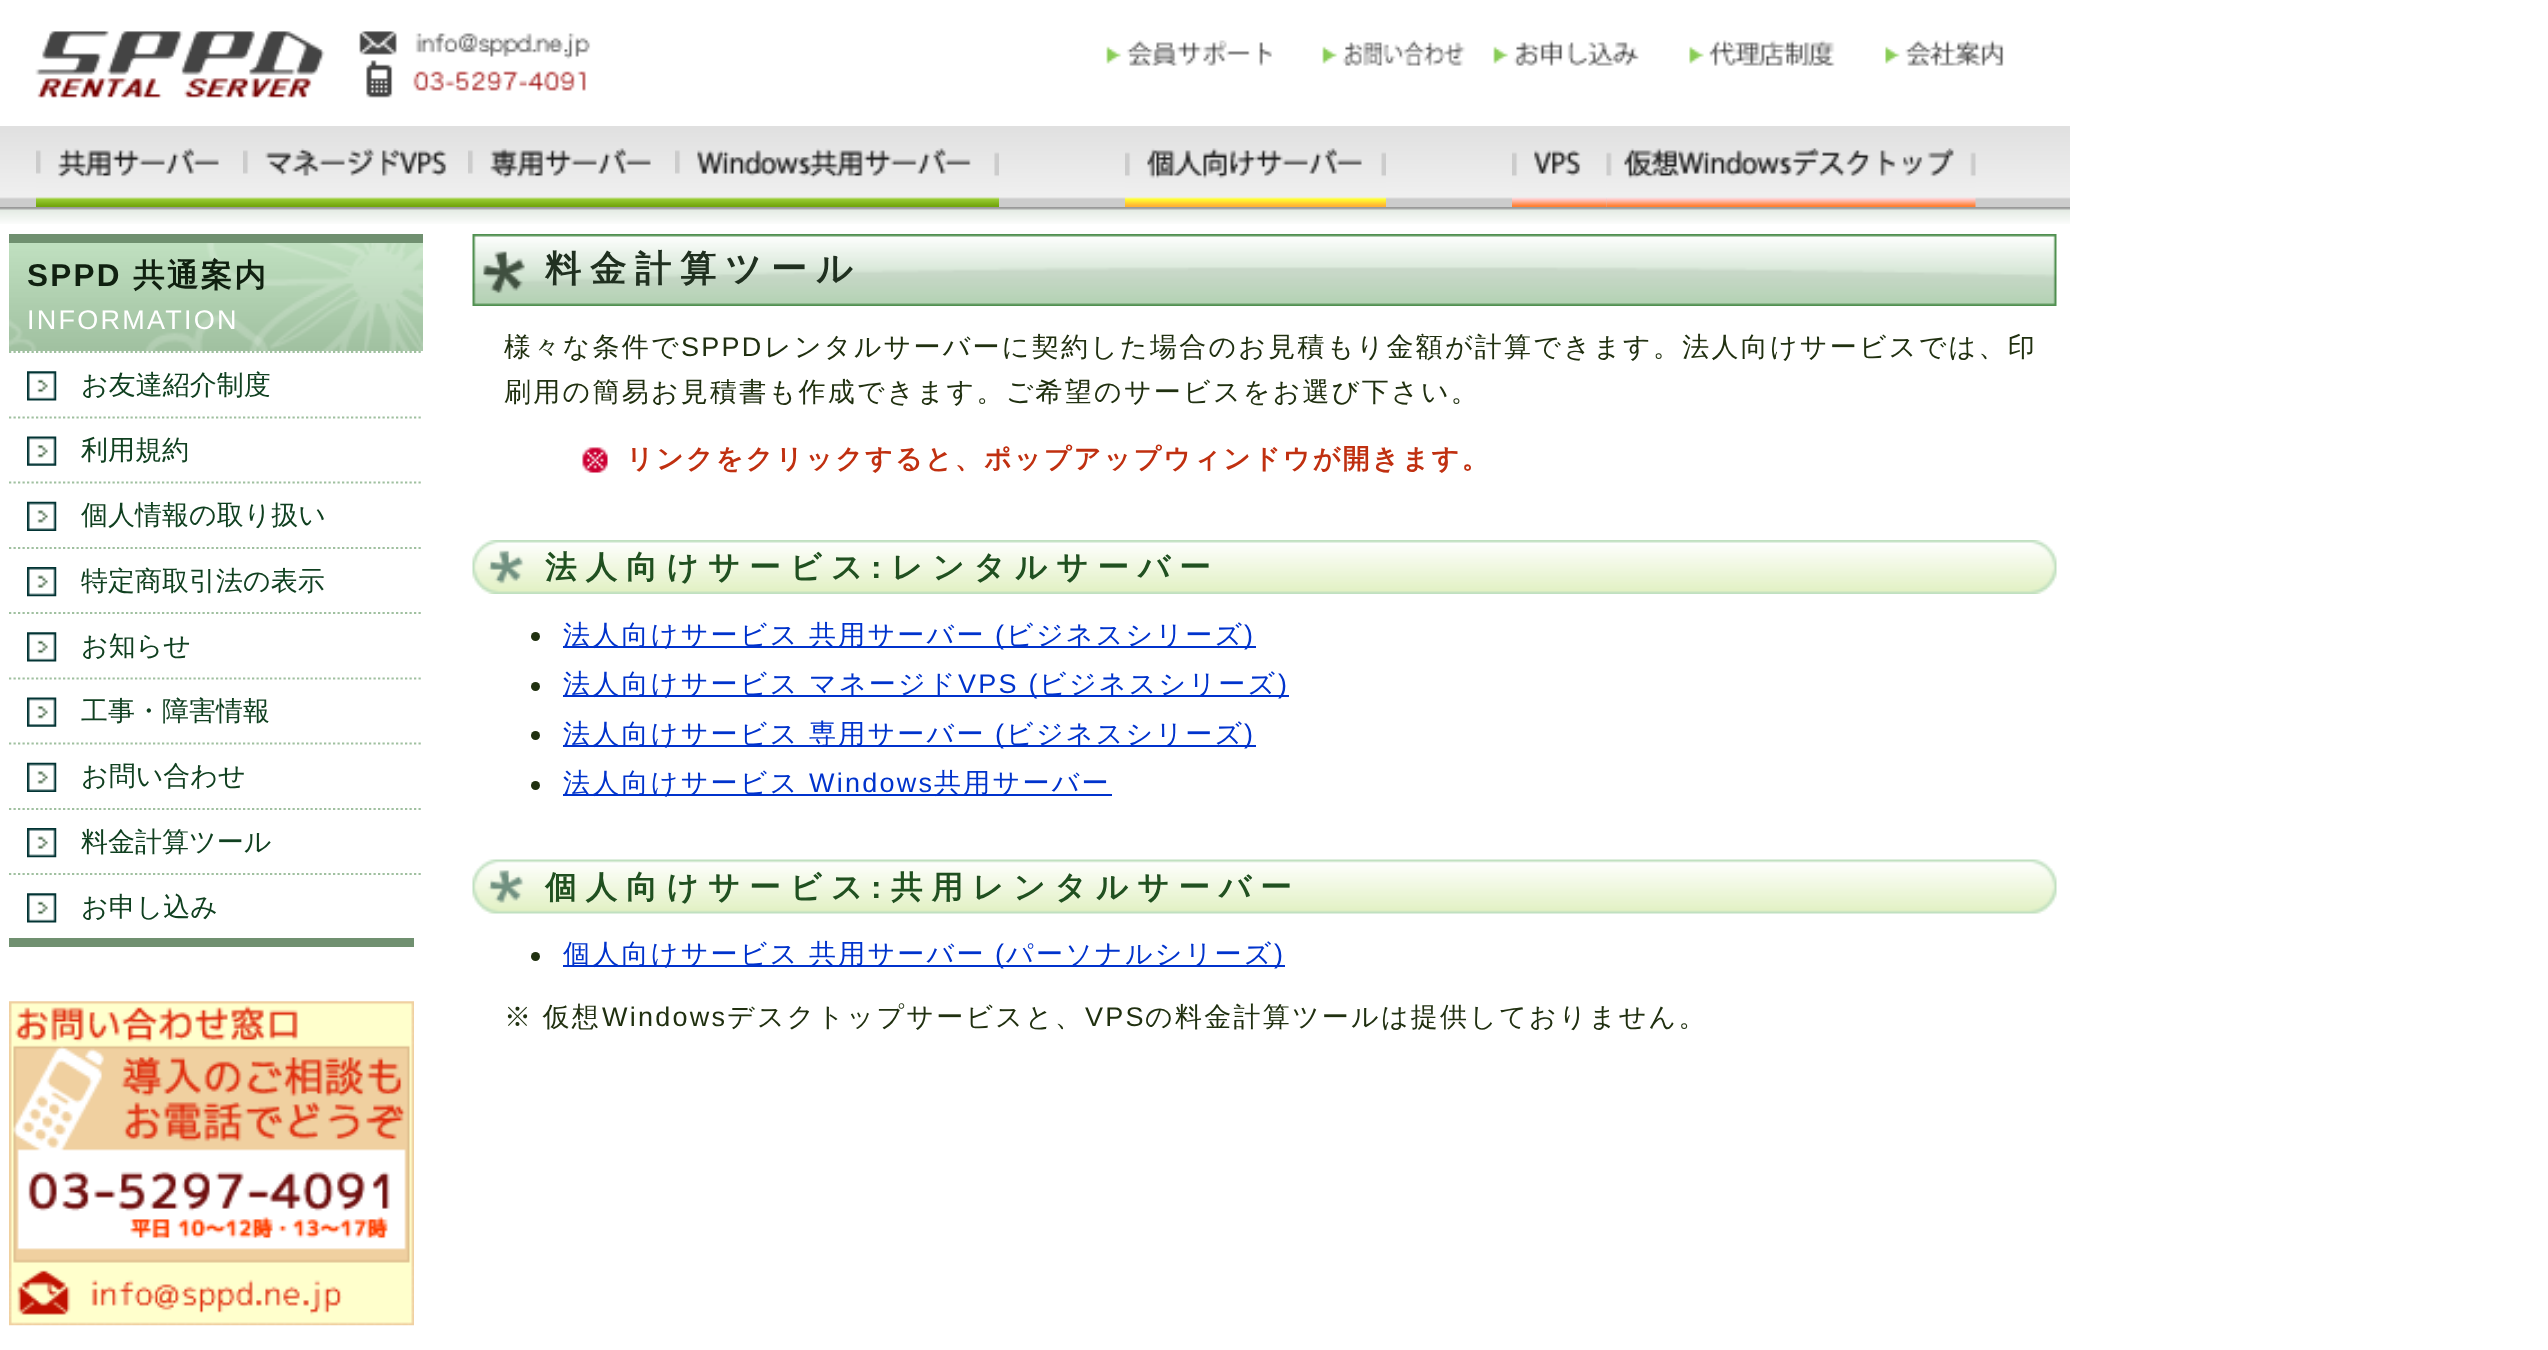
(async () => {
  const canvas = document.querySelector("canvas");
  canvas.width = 2548;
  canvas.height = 1350;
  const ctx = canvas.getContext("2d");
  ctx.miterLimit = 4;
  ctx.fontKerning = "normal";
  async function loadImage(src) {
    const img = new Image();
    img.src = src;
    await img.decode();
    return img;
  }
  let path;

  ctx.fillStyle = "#ffffff";
  ctx.fillRect(0, 0, 2548, 1350);
  ctx.drawImage(await loadImage("img/1.png"), 0, 207, 473, 17);
  ctx.drawImage(await loadImage("img/2.png"), 35, 31, 556, 67);
  ctx.drawImage(await loadImage("img/3.png"), 1106, 40, 166, 26);
  ctx.drawImage(await loadImage("img/4.png"), 1322, 40, 144, 26);
  ctx.drawImage(await loadImage("img/5.png"), 1493, 40, 146, 26);
  ctx.drawImage(await loadImage("img/6.png"), 1689, 40, 146, 26);
  ctx.drawImage(await loadImage("img/7.png"), 1885, 40, 119, 26);
  ctx.drawImage(await loadImage("img/8.png"), 0, 126, 2070, 81);
  ctx.drawImage(await loadImage("img/9.png"), 36, 148, 207, 59);
  ctx.drawImage(await loadImage("img/10.png"), 243, 148, 225, 59);
  ctx.drawImage(await loadImage("img/11.png"), 468, 148, 207, 59);
  ctx.drawImage(await loadImage("img/12.png"), 675, 148, 324, 59);
  ctx.drawImage(await loadImage("img/13.png"), 1125, 148, 261, 59);
  ctx.drawImage(await loadImage("img/14.png"), 1512, 150, 95, 57);
  ctx.drawImage(await loadImage("img/15.png"), 1606, 148, 370, 59);
  ctx.drawImage(await loadImage("img/16.png"), 9, 207, 432, 17);
  ctx.drawImage(await loadImage("img/17.png"), 9, 243, 414, 54);
  ctx.fillStyle = "#709070";
  ctx.fillRect(9, 234, 414, 9);
  ctx.drawImage(await loadImage("img/18.png"), 9, 297, 414, 54);
  ctx.fillRect(9, 938, 405, 9);
  ctx.drawImage(await loadImage("img/19.png"), 27, 371, 30, 30);
  path = new Path2D("M9 352H423");
  ctx.strokeStyle = "#a0c0a0";
  ctx.lineWidth = 2.2;
  ctx.setLineDash([2.25, 2.25]);
  ctx.stroke(path);
  ctx.drawImage(await loadImage("img/20.png"), 27, 436, 30, 30);
  path = new Path2D("M9 417.5H423");
  ctx.stroke(path);
  ctx.drawImage(await loadImage("img/21.png"), 27, 501, 30, 30);
  path = new Path2D("M9 482.5H423");
  ctx.stroke(path);
  ctx.drawImage(await loadImage("img/22.png"), 27, 567, 30, 30);
  path = new Path2D("M9 548H423");
  ctx.stroke(path);
  ctx.drawImage(await loadImage("img/19.png"), 27, 632, 30, 30);
  path = new Path2D("M9 613H423");
  ctx.stroke(path);
  ctx.drawImage(await loadImage("img/20.png"), 27, 697, 30, 30);
  path = new Path2D("M9 678.5H423");
  ctx.stroke(path);
  ctx.drawImage(await loadImage("img/21.png"), 27, 762, 30, 30);
  path = new Path2D("M9 743.5H423");
  ctx.stroke(path);
  ctx.drawImage(await loadImage("img/22.png"), 27, 828, 30, 30);
  path = new Path2D("M9 809H423");
  ctx.stroke(path);
  ctx.drawImage(await loadImage("img/19.png"), 27, 893, 30, 30);
  path = new Path2D("M9 874H423");
  ctx.stroke(path);
  ctx.drawImage(await loadImage("img/23.png"), 9, 1001, 405, 325);
  ctx.drawImage(await loadImage("img/24.png"), 473, 207, 1597, 17);
  ctx.drawImage(await loadImage("img/25.png"), 472, 234, 1585, 72);
  ctx.drawImage(await loadImage("img/26.png"), 582, 447, 26, 26);
  ctx.drawImage(await loadImage("img/27.png"), 472, 540, 1585, 54);
  ctx.fillStyle = "#203010";
  ctx.beginPath();
  ctx.arc(535.5, 636.5, 4.5, 0, Math.PI * 2);
  ctx.fill();
  ctx.fillStyle = "#0033cc";
  ctx.fillRect(563, 646, 693, 2);
  ctx.fillStyle = "#203010";
  ctx.beginPath();
  ctx.arc(535.5, 686.5, 4.5, 0, Math.PI * 2);
  ctx.fill();
  ctx.fillStyle = "#0033cc";
  ctx.fillRect(563, 695, 726, 2);
  ctx.fillStyle = "#203010";
  ctx.beginPath();
  ctx.arc(535.5, 735.5, 4.5, 0, Math.PI * 2);
  ctx.fill();
  ctx.fillStyle = "#0033cc";
  ctx.fillRect(563, 745, 693, 2);
  ctx.fillStyle = "#203010";
  ctx.beginPath();
  ctx.arc(535.5, 785.5, 4.5, 0, Math.PI * 2);
  ctx.fill();
  ctx.fillStyle = "#0033cc";
  ctx.fillRect(563, 794, 549, 2);
  ctx.drawImage(await loadImage("img/28.png"), 472, 859, 1585, 55);
  ctx.fillStyle = "#203010";
  ctx.beginPath();
  ctx.arc(535.5, 956.5, 4.5, 0, Math.PI * 2);
  ctx.fill();
  ctx.fillStyle = "#0033cc";
  ctx.fillRect(563, 965, 722, 2);
  ctx.letterSpacing = "2.25px";
  ctx.font = "bold 31.5px Liberation Sans";
  ctx.fillStyle = "#102010";
  ctx.fillText("SPPD", 27, 286);
  ctx.font = "bold 31.5px WenQuanYi Zen Hei";
  ctx.fillText("共通案内", 133, 286);
  ctx.font = "27px Liberation Sans";
  ctx.fillStyle = "#ffffff";
  ctx.fillText("INFORMATION", 27, 329);
  ctx.letterSpacing = "0px";
  ctx.font = "500 27px WenQuanYi Zen Hei";
  ctx.fillStyle = "#104020";
  for (const [text, x, y] of [
    ["お友達紹介制度", 81, 394],
    ["利用規約", 81, 459],
    ["個人情報の取り扱い", 81, 524],
    ["特定商取引法の表示", 81, 590],
    ["お知らせ", 81, 655],
    ["工事・障害情報", 81, 720],
    ["お問い合わせ", 81, 785],
    ["料金計算ツール", 81, 851],
    ["お申し込み", 81, 916],
  ]) {
    ctx.fillText(text, x, y);
  }
  ctx.letterSpacing = "9px";
  ctx.font = "bold 36px WenQuanYi Zen Hei";
  ctx.fillStyle = "#203020";
  ctx.fillText("料金計算ツール", 545, 281);
  ctx.letterSpacing = "2.25px";
  ctx.font = "500 27px WenQuanYi Zen Hei";
  ctx.fillStyle = "#203010";
  ctx.fillText("様々な条件で", 504, 356);
  ctx.font = "27px Liberation Sans";
  ctx.fillText("SPPD", 681, 356);
  ctx.font = "500 27px WenQuanYi Zen Hei";
  ctx.fillText("レンタルサーバーに契約した場合のお見積もり金額が計算できます。法人向けサービスでは、印", 764, 356);
  ctx.fillText("刷用の簡易お見積書も作成できます。ご希望のサービスをお選び下さい。", 504, 401);
  ctx.font = "bold 27px WenQuanYi Zen Hei";
  ctx.fillStyle = "#c03010";
  ctx.fillText("リンクをクリックすると、ポップアップウィンドウが開きます。", 626, 468);
  ctx.letterSpacing = "9px";
  ctx.font = "bold 31.5px WenQuanYi Zen Hei";
  ctx.fillStyle = "#205020";
  ctx.fillText("法人向けサービス", 545, 578);
  ctx.font = "bold 31.5px Liberation Sans";
  ctx.fillText(":", 871, 578);
  ctx.font = "bold 31.5px WenQuanYi Zen Hei";
  ctx.fillText("レンタルサーバー", 891, 578);
  ctx.letterSpacing = "2.25px";
  ctx.wordSpacing = "-1px";
  ctx.font = "500 27px WenQuanYi Zen Hei";
  ctx.fillStyle = "#0033cc";
  ctx.fillText("法人向けサービス 共用サーバー", 563, 644);
  ctx.wordSpacing = "0px";
  ctx.font = "27px Liberation Sans";
  ctx.fillText("(", 995, 644);
  ctx.font = "500 27px WenQuanYi Zen Hei";
  ctx.fillText("ビジネスシリーズ", 1006, 644);
  ctx.font = "27px Liberation Sans";
  ctx.fillText(")", 1244, 644);
  ctx.font = "500 27px WenQuanYi Zen Hei";
  ctx.fillText("法人向けサービス", 563, 693);
  ctx.fillText("マネージド", 809, 693);
  ctx.font = "27px Liberation Sans";
  ctx.fillText("VPS (", 958, 693);
  ctx.font = "500 27px WenQuanYi Zen Hei";
  ctx.fillText("ビジネスシリーズ", 1039, 693);
  ctx.font = "27px Liberation Sans";
  ctx.fillText(")", 1278, 693);
  ctx.wordSpacing = "-1px";
  ctx.font = "500 27px WenQuanYi Zen Hei";
  ctx.fillText("法人向けサービス 専用サーバー", 563, 743);
  ctx.wordSpacing = "0px";
  ctx.font = "27px Liberation Sans";
  ctx.fillText("(", 995, 743);
  ctx.font = "500 27px WenQuanYi Zen Hei";
  ctx.fillText("ビジネスシリーズ", 1006, 743);
  ctx.font = "27px Liberation Sans";
  ctx.fillText(")", 1244, 743);
  ctx.font = "500 27px WenQuanYi Zen Hei";
  ctx.fillText("法人向けサービス", 563, 792);
  ctx.font = "27px Liberation Sans";
  ctx.fillText("Windows", 809, 792);
  ctx.font = "500 27px WenQuanYi Zen Hei";
  ctx.fillText("共用サーバー", 934, 792);
  ctx.letterSpacing = "9px";
  ctx.font = "bold 31.5px WenQuanYi Zen Hei";
  ctx.fillStyle = "#205020";
  ctx.fillText("個人向けサービス", 545, 898);
  ctx.font = "bold 31.5px Liberation Sans";
  ctx.fillText(":", 871, 898);
  ctx.font = "bold 31.5px WenQuanYi Zen Hei";
  ctx.fillText("共用レンタルサーバー", 891, 898);
  ctx.letterSpacing = "2.25px";
  ctx.wordSpacing = "-1px";
  ctx.font = "500 27px WenQuanYi Zen Hei";
  ctx.fillStyle = "#0033cc";
  ctx.fillText("個人向けサービス 共用サーバー", 563, 963);
  ctx.wordSpacing = "0px";
  ctx.font = "27px Liberation Sans";
  ctx.fillText("(", 995, 963);
  ctx.font = "500 27px WenQuanYi Zen Hei";
  ctx.fillText("パーソナルシリーズ", 1006, 963);
  ctx.font = "27px Liberation Sans";
  ctx.fillText(")", 1274, 963);
  ctx.wordSpacing = "-1px";
  ctx.font = "500 27px WenQuanYi Zen Hei";
  ctx.fillStyle = "#203010";
  ctx.fillText("※ 仮想", 504, 1026);
  ctx.wordSpacing = "0px";
  ctx.font = "27px Liberation Sans";
  ctx.fillText("Windows", 602, 1026);
  ctx.font = "500 27px WenQuanYi Zen Hei";
  ctx.fillText("デスクトップサービスと、", 727, 1026);
  ctx.font = "27px Liberation Sans";
  ctx.fillText("VPS", 1085, 1026);
  ctx.font = "500 27px WenQuanYi Zen Hei";
  ctx.fillText("の料金計算ツールは提供しておりません。", 1145, 1026);
})();
